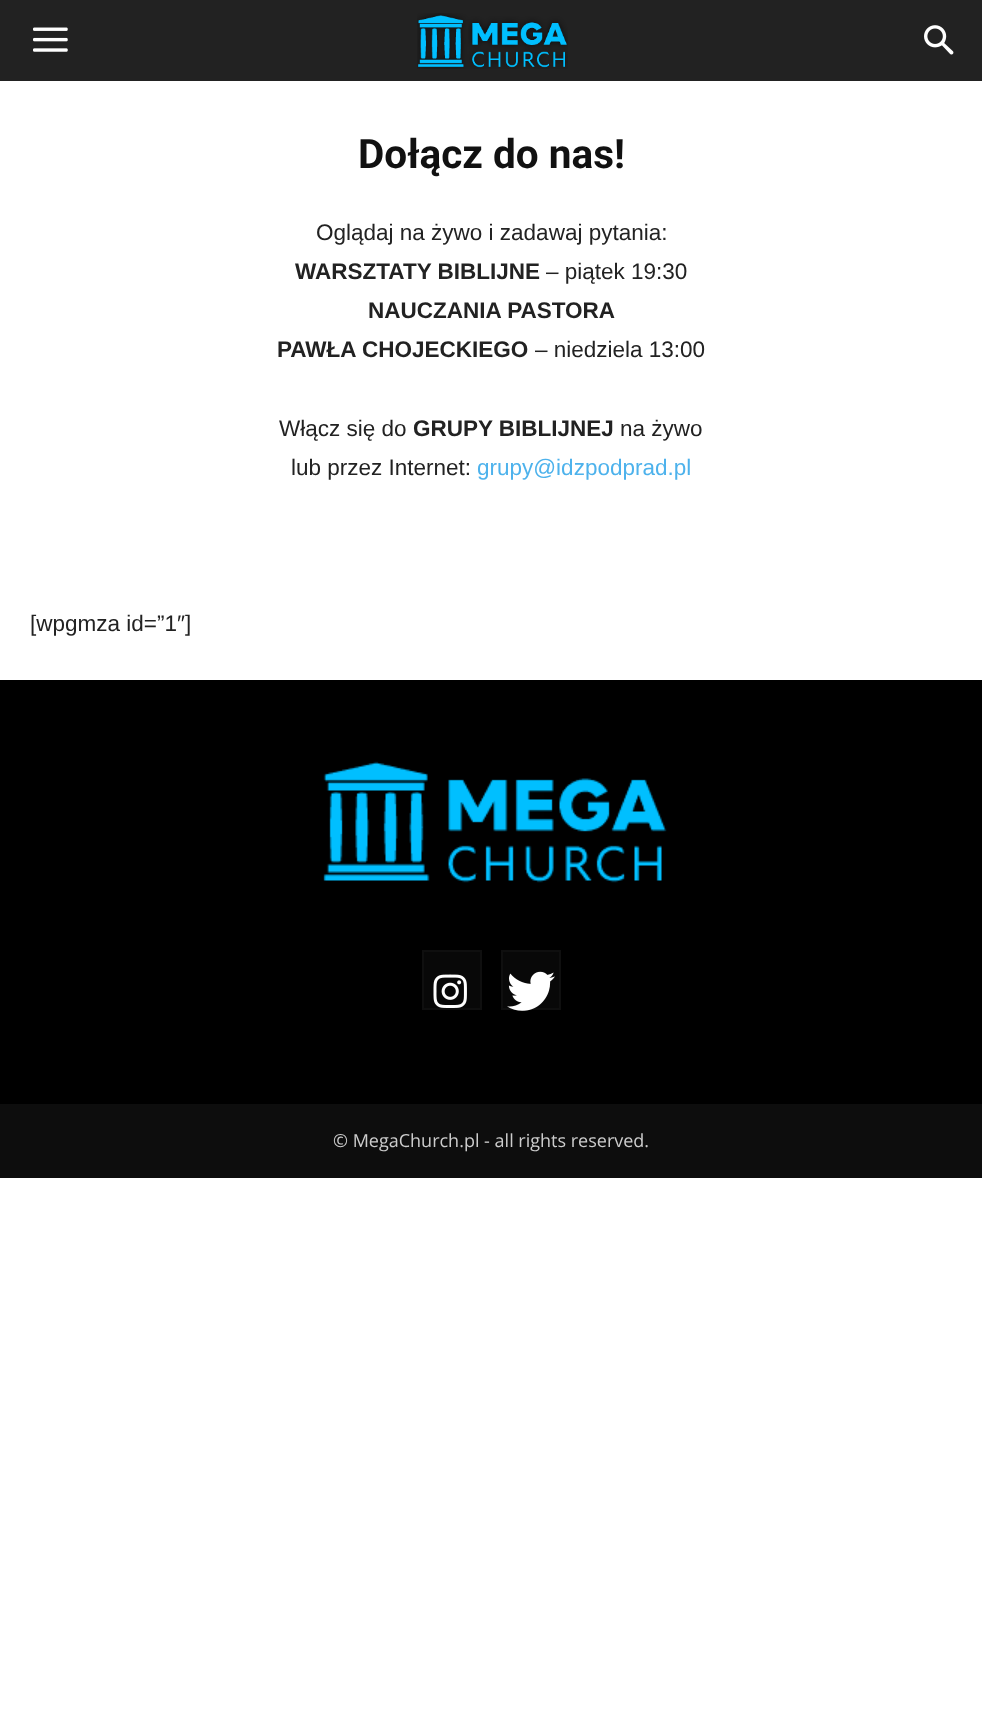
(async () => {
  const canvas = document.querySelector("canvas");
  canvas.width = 982;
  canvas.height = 1712;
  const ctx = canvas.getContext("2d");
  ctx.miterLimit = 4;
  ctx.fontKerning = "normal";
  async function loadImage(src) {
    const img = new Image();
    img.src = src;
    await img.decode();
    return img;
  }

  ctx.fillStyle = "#ffffff";
  ctx.fillRect(0, 0, 982, 1712);
  ctx.fillStyle = "#222222";
  ctx.fillRect(0, 0, 982, 81);
  ctx.drawImage(await loadImage("img/1.png"), 33, 27, 35, 25);
  ctx.drawImage(await loadImage("img/2.png"), 417, 13, 151, 56);
  ctx.drawImage(await loadImage("img/3.png"), 924, 25, 30, 30);
  ctx.fillStyle = "#000000";
  ctx.fillRect(0, 680, 982, 424);
  ctx.drawImage(await loadImage("img/4.png"), 323, 761, 344, 122);
  ctx.fillStyle = "#080808";
  ctx.fillRect(424, 952, 56, 56);
  ctx.drawImage(await loadImage("img/5.png"), 433, 974, 34, 34);
  ctx.strokeStyle = "#0f0f0f";
  ctx.lineWidth = 2;
  ctx.strokeRect(423, 951, 58, 58);
  ctx.fillRect(501, 950, 60, 60);
  ctx.drawImage(await loadImage("img/6.png"), 507, 971, 48, 40);
  ctx.strokeStyle = "rgba(255, 255, 255, 0.03)";
  ctx.strokeRect(502, 951, 58, 58);
  ctx.fillStyle = "#0d0d0d";
  ctx.fillRect(0, 1104, 982, 74);
  ctx.font = "bold 40.5px Roboto";
  ctx.fillStyle = "#111111";
  ctx.fillText("Dołącz do nas!", 358, 168);
  ctx.font = "22.5px Liberation Sans";
  ctx.fillStyle = "#222222";
  ctx.fillText("Oglądaj na żywo i zadawaj pytania:", 316, 240);
  ctx.font = "bold 22.5px Liberation Sans";
  ctx.fillText("WARSZTATY BIBLIJNE", 295, 279);
  ctx.font = "22.5px Liberation Sans";
  ctx.fillText("– piątek 19:30", 546, 279);
  ctx.font = "bold 22.5px Liberation Sans";
  ctx.fillText("NAUCZANIA PASTORA", 368, 318);
  ctx.fillText("PAWŁA CHOJECKIEGO", 277, 357);
  ctx.font = "22.5px Liberation Sans";
  ctx.fillText("– niedziela 13:00", 535, 357);
  ctx.fillText("Włącz się do", 279, 436);
  ctx.font = "bold 22.5px Liberation Sans";
  ctx.fillText("GRUPY BIBLIJNEJ", 413, 436);
  ctx.font = "22.5px Liberation Sans";
  ctx.fillText("na żywo", 620, 436);
  ctx.fillText("lub przez Internet:", 291, 475);
  ctx.fillStyle = "#4db2ec";
  ctx.fillText("grupy@idzpodprad.pl", 477, 475);
  ctx.fillStyle = "#222222";
  ctx.fillText("[wpgmza id=”1″]", 30, 631);
  ctx.font = "18px Open Sans";
  ctx.fillStyle = "#cccccc";
  ctx.fillText("© MegaChurch.pl - all rights reserved.", 333, 1147);
})();
